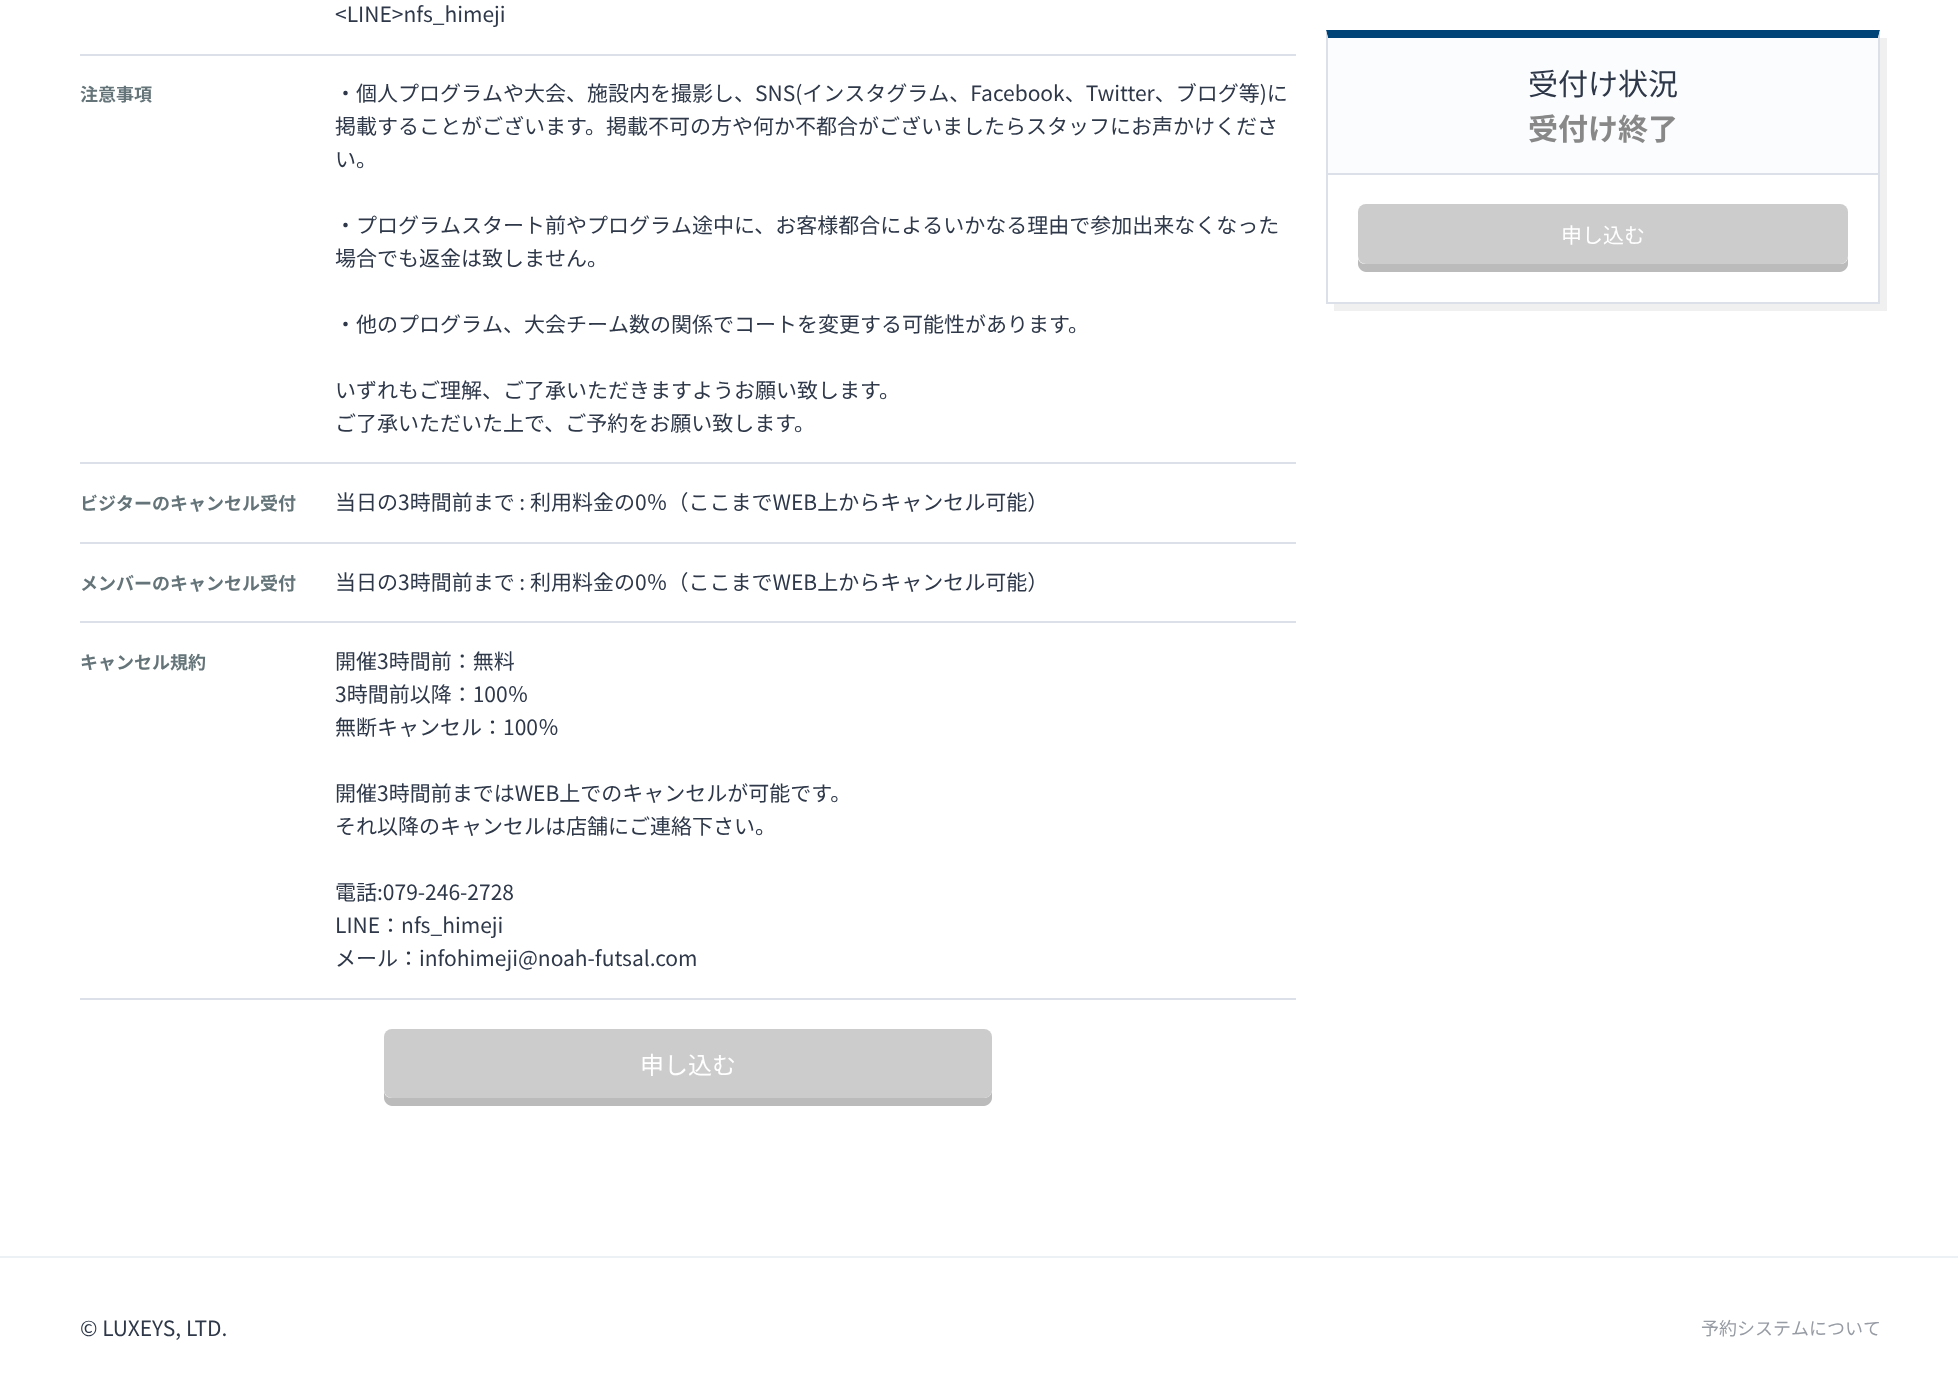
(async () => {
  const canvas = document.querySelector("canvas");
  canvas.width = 1958;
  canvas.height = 1380;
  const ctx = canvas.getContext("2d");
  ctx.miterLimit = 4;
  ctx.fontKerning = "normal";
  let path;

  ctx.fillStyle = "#ffffff";
  ctx.fillRect(0, 0, 1958, 1380);
  for (const [x, y, w, h, color] of [
    [80, 54, 1216, 2, "#dce1e9"],
    [80, 462, 1216, 2, "#dce1e9"],
    [80, 542, 1216, 2, "#dce1e9"],
    [80, 621, 1216, 2, "#dce1e9"],
    [80, 998, 1216, 2, "#dce1e9"],
  ]) {
    ctx.fillStyle = color;
    ctx.fillRect(x, y, w, h);
  }
  ctx.fillStyle = "#bbbbbb";
  path = new Path2D("M384 1090V1098C384 1102 388 1106 392 1106H984C988 1106 992 1102 992 1098V1045V1042V1090C992 1095 988 1098 984 1098H392C387 1098 384 1095 384 1090Z");
  ctx.fill(path);
  ctx.fillStyle = "#cccccc";
  ctx.beginPath();
  ctx.roundRect(384, 1029, 608, 69, 8);
  ctx.fill();
  ctx.fillStyle = "#f0f0f0";
  path = new Path2D("M1334 303V311H1887V38H1880V303Z");
  ctx.fill(path);
  ctx.fillStyle = "#004477";
  path = new Path2D("M1326 30H1880L1878 38H1328Z");
  ctx.fill(path);
  ctx.fillStyle = "#dce1e9";
  path = new Path2D("M1880 30V303L1878 302V38Z");
  ctx.fill(path);
  ctx.fillRect(1326, 302, 554, 2);
  path = new Path2D("M1326 303V30L1328 38V302Z");
  ctx.fill(path);
  ctx.fillStyle = "#fbfcfe";
  ctx.fillRect(1328, 38, 550, 135);
  ctx.fillStyle = "#dce1e9";
  ctx.fillRect(1328, 173, 550, 2);
  ctx.fillStyle = "#bbbbbb";
  path = new Path2D("M1358 259V264C1358 268 1362 272 1366 272H1840C1844 272 1848 268 1848 264V256C1848 261 1845 264 1840 264H1365C1362 264 1359 262 1358 259Z");
  ctx.fill(path);
  ctx.fillStyle = "#cccccc";
  ctx.beginPath();
  ctx.roundRect(1358, 204, 490, 60, 8);
  ctx.fill();
  ctx.fillStyle = "#ebf1f4";
  ctx.fillRect(0, 1256, 1958, 2);
  ctx.font = "21px Noto Sans JP";
  ctx.fillStyle = "#2e3849";
  ctx.fillText("<LINE>nfs_himeji", 335, 22);
  ctx.font = "bold 18px Noto Sans JP";
  ctx.fillStyle = "#647479";
  ctx.fillText("注意事項", 80, 101);
  ctx.font = "21px Noto Sans JP";
  ctx.fillStyle = "#2e3849";
  for (const [text, x, y] of [
    ["・個人プログラムや大会、施設内を撮影し、SNS(インスタグラム、Facebook、Twitter、ブログ等)に", 335, 101],
    ["掲載することがございます。掲載不可の方や何か不都合がございましたらスタッフにお声かけくださ", 335, 134],
    ["い。", 335, 167],
    ["・プログラムスタート前やプログラム途中に、お客様都合によるいかなる理由で参加出来なくなった", 335, 233],
    ["場合でも返金は致しません。", 335, 266],
    ["・他のプログラム、大会チーム数の関係でコートを変更する可能性があります。", 335, 332],
    ["いずれもご理解、ご了承いただきますようお願い致します。", 335, 398],
    ["ご了承いただいた上で、ご予約をお願い致します。", 335, 431],
  ]) {
    ctx.fillText(text, x, y);
  }
  ctx.font = "bold 18px Noto Sans JP";
  ctx.fillStyle = "#647479";
  ctx.fillText("ビジターのキャンセル受付", 80, 510);
  ctx.font = "21px Noto Sans JP";
  ctx.fillStyle = "#2e3849";
  ctx.fillText("当日の3時間前まで : 利用料金の0％（ここまでWEB上からキャンセル可能）", 335, 510);
  ctx.font = "bold 18px Noto Sans JP";
  ctx.fillStyle = "#647479";
  ctx.fillText("メンバーのキャンセル受付", 80, 590);
  ctx.font = "21px Noto Sans JP";
  ctx.fillStyle = "#2e3849";
  ctx.fillText("当日の3時間前まで : 利用料金の0％（ここまでWEB上からキャンセル可能）", 335, 590);
  ctx.font = "bold 18px Noto Sans JP";
  ctx.fillStyle = "#647479";
  ctx.fillText("キャンセル規約", 80, 669);
  ctx.font = "21px Noto Sans JP";
  ctx.fillStyle = "#2e3849";
  for (const [text, x, y] of [
    ["開催3時間前：無料", 335, 669],
    ["3時間前以降：100％", 335, 702],
    ["無断キャンセル：100％", 335, 735],
    ["開催3時間前まではWEB上でのキャンセルが可能です。", 335, 801],
    ["それ以降のキャンセルは店舗にご連絡下さい。", 335, 834],
    ["電話:079-246-2728", 335, 900],
    ["LINE：nfs_himeji", 335, 933],
    ["メール：infohimeji@noah-futsal.com", 335, 966],
  ]) {
    ctx.fillText(text, x, y);
  }
  ctx.font = "24px Noto Sans JP";
  ctx.fillStyle = "#ffffff";
  ctx.fillText("申し込む", 640, 1074);
  ctx.font = "30px Noto Sans JP";
  ctx.fillStyle = "#2e3849";
  ctx.fillText("受付け状況", 1528, 95);
  ctx.font = "bold 30px Noto Sans JP";
  ctx.fillStyle = "#888888";
  ctx.fillText("受付け終了", 1528, 140);
  ctx.font = "21px Noto Sans JP";
  ctx.fillStyle = "#ffffff";
  ctx.fillText("申し込む", 1561, 243);
  ctx.fillStyle = "#2e3849";
  ctx.fillText("©︎ LUXEYS, LTD.", 80, 1336);
  ctx.font = "18px Noto Sans JP";
  ctx.fillStyle = "#979ca4";
  ctx.fillText("予約システムについて", 1701, 1335);
})();
